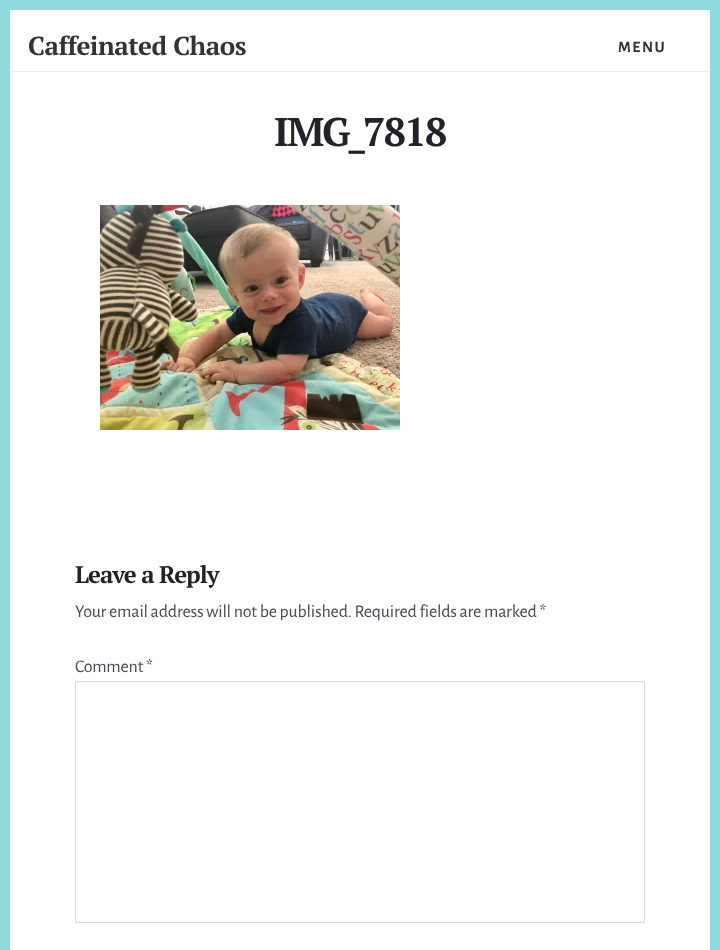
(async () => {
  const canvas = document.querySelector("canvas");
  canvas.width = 720;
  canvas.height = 950;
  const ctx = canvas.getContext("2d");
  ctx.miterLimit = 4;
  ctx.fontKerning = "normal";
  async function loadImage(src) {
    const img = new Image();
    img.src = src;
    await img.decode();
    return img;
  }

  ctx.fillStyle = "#8fdade";
  ctx.fillRect(0, 0, 720, 950);
  ctx.fillStyle = "#ffffff";
  ctx.fillRect(10, 10, 700, 940);
  ctx.fillStyle = "#edecee";
  ctx.fillRect(10, 71, 700, 1);
  ctx.drawImage(await loadImage("img/1.png"), 100, 205, 300, 225);
  ctx.strokeStyle = "#dcdadd";
  ctx.strokeRect(75.5, 681.5, 569, 241);
  ctx.letterSpacing = "-0.5px";
  ctx.font = "bold 26px PT Serif";
  ctx.fillStyle = "#333333";
  ctx.fillText("Caffeinated Chaos", 28, 55);
  ctx.letterSpacing = "1.5px";
  ctx.font = "bold 16px Alegreya Sans";
  ctx.fillText("MENU", 618, 52);
  ctx.letterSpacing = "-2px";
  ctx.font = "bold 40px PT Serif";
  ctx.fillStyle = "#25212a";
  ctx.fillText("IMG_7818", 274, 146);
  ctx.letterSpacing = "-1px";
  ctx.font = "bold 24px PT Serif";
  ctx.fillText("Leave a Reply", 75, 583);
  ctx.letterSpacing = "-0.2px";
  ctx.font = "18px Alegreya Sans";
  ctx.fillStyle = "#4e4756";
  ctx.fillText("Your email address will not be published. Required fields are marked *", 75, 617);
  ctx.fillText("Comment *", 75, 672);
})();
